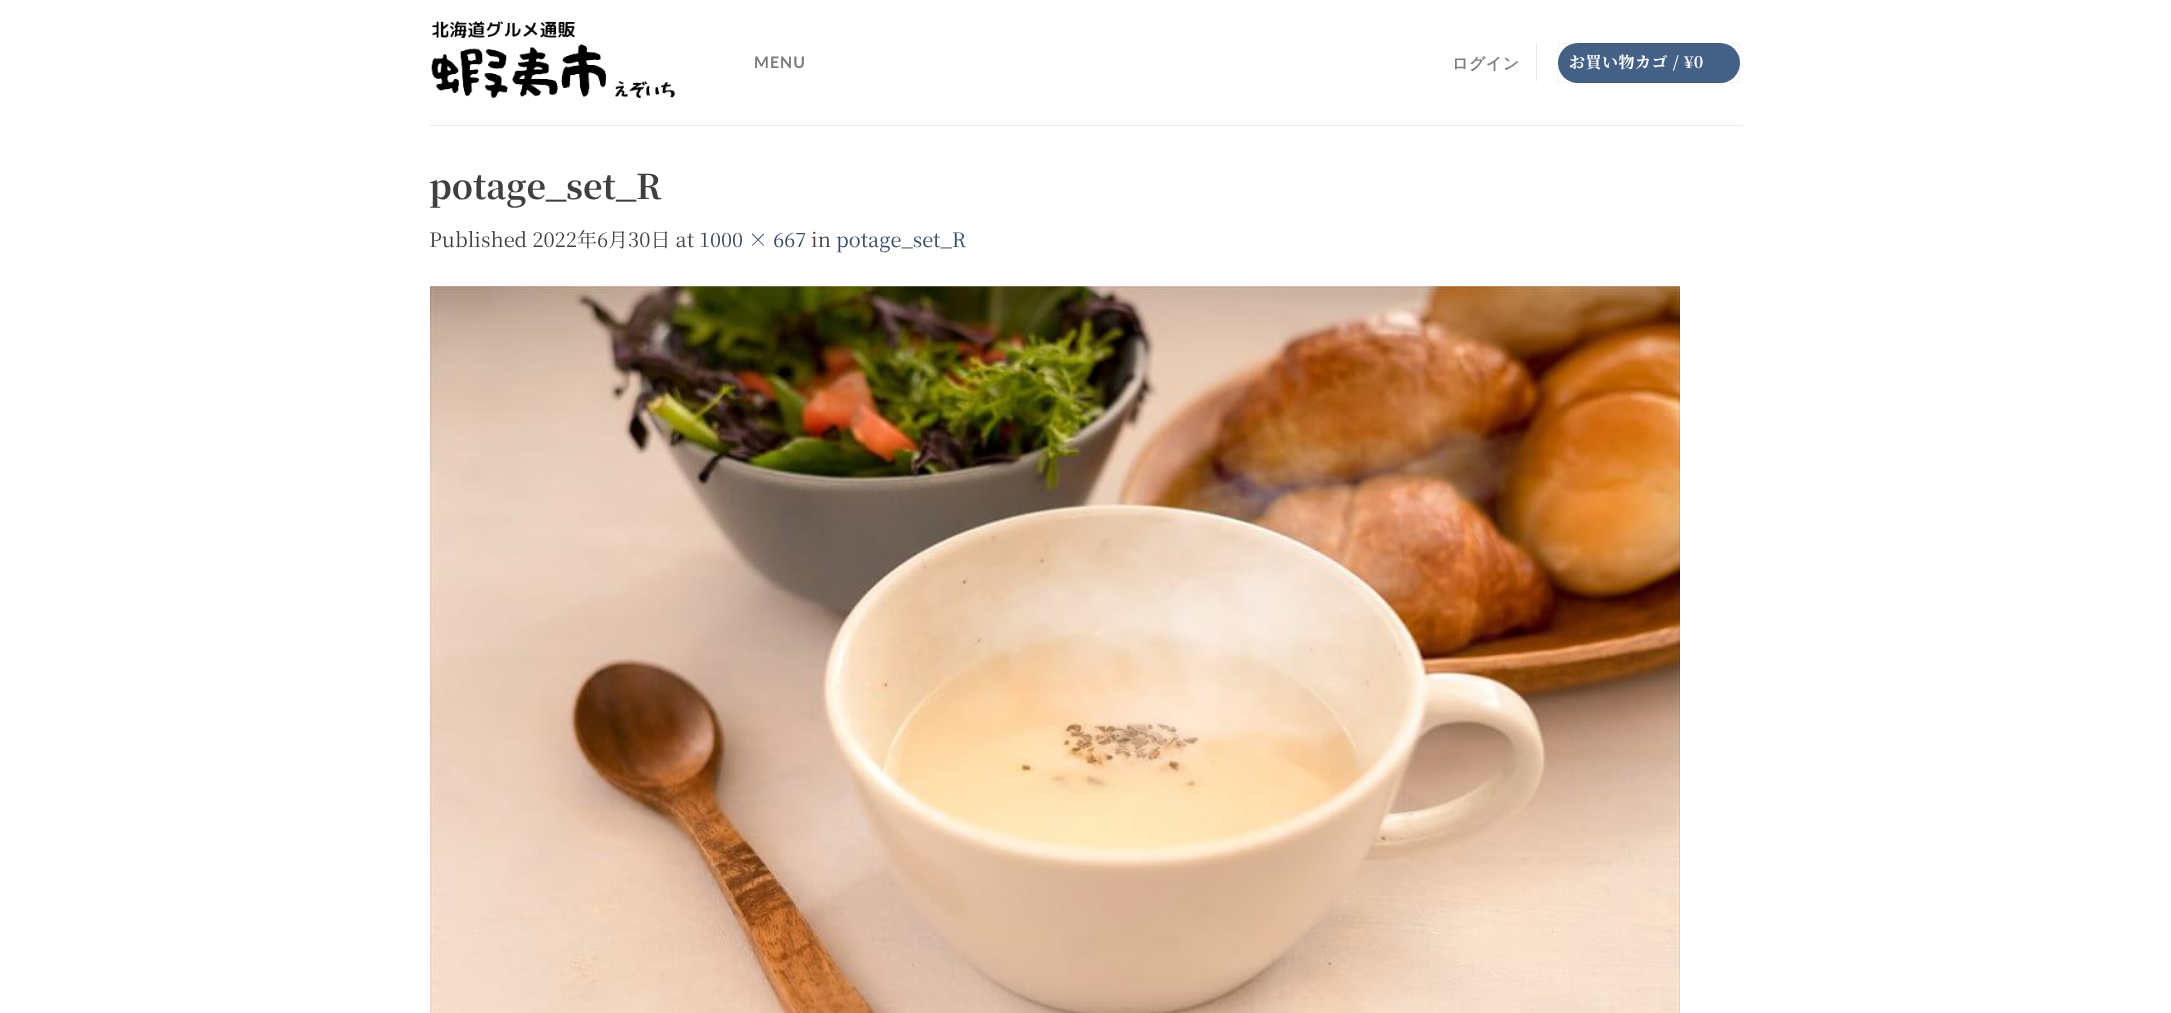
(async () => {
  const canvas = document.querySelector("canvas");
  canvas.width = 2171;
  canvas.height = 1013;
  const ctx = canvas.getContext("2d");
  ctx.miterLimit = 4;
  ctx.fontKerning = "none";
  async function loadImage(src) {
    const img = new Image();
    img.src = src;
    await img.decode();
    return img;
  }

  ctx.fillStyle = "#ffffff";
  ctx.fillRect(0, 0, 2171, 1013);
  ctx.drawImage(await loadImage("img/1.png"), 431, 21, 244, 77);
  ctx.fillStyle = "#e6e6e6";
  ctx.fillRect(1536, 44, 1, 37);
  ctx.fillStyle = "#446084";
  ctx.beginPath();
  ctx.roundRect(1558, 43, 182, 40, 20);
  ctx.fill();
  ctx.strokeStyle = "rgba(0, 0, 0, 0.05)";
  ctx.strokeRect(1558.5, 43.5, 181, 39);
  ctx.fillStyle = "#ebebeb";
  ctx.fillRect(430, 125, 1313, 1);
  ctx.drawImage(await loadImage("img/2.png"), 430, 286, 1250, 727);
  ctx.letterSpacing = "1px";
  ctx.font = "bold 16px Lato";
  ctx.fillStyle = "#7d7d7d";
  ctx.fillText("MENU", 754, 68);
  ctx.letterSpacing = "0.5px";
  ctx.font = "bold 16px WenQuanYi Zen Hei";
  ctx.fillText("ログイン", 1452, 69);
  ctx.font = "bold 16px Noto Serif JP";
  ctx.fillStyle = "#ffffff";
  ctx.fillText("お買い物カゴ / ¥0", 1569, 68);
  ctx.letterSpacing = "0px";
  ctx.font = "bold 34px Noto Serif JP";
  ctx.fillStyle = "#3f3f3f";
  ctx.fillText("potage_set_R", 429, 199);
  ctx.font = "20px Noto Serif JP";
  ctx.fillText("Published 2022年6月30日 at", 429, 247);
  ctx.fillStyle = "#334862";
  ctx.fillText("1000 × 667", 699, 247);
  ctx.fillStyle = "#3f3f3f";
  ctx.fillText("in", 811, 247);
  ctx.fillStyle = "#334862";
  ctx.fillText("potage_set_R", 836, 247);
})();
